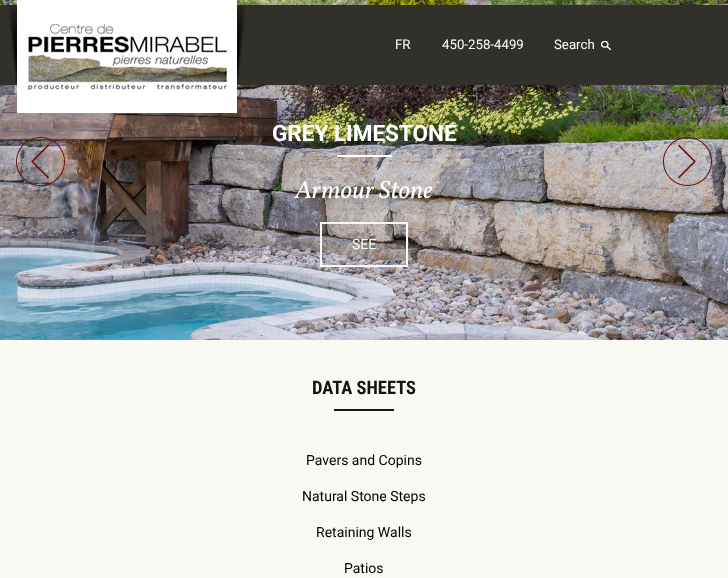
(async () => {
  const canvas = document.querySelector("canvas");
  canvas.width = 728;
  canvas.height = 578;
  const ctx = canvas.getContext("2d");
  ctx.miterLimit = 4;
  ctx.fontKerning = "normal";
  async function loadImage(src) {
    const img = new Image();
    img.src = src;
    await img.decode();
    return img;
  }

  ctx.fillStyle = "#f9faf4";
  ctx.fillRect(0, 0, 728, 578);
  ctx.drawImage(await loadImage("img/3.png"), 0, 0, 728, 340);
  ctx.fillStyle = "#32302b";
  ctx.fillRect(0, 5, 728, 80);
  ctx.drawImage(await loadImage("img/1.png"), 8, 0, 238, 113);
  ctx.drawImage(await loadImage("img/2.png"), 601, 41, 10, 9);
  ctx.drawImage(await loadImage("img/4.png"), 16, 137, 49, 49);
  ctx.fillStyle = "#ffffff";
  ctx.fillRect(337, 155, 55, 2);
  ctx.strokeStyle = "#f9f9f4";
  ctx.lineWidth = 2;
  ctx.strokeRect(321, 223, 86, 43);
  ctx.drawImage(await loadImage("img/5.png"), 663, 137, 49, 49);
  ctx.fillStyle = "#141415";
  ctx.fillRect(334, 409, 60, 2);
  ctx.font = "13.25px Roboto";
  ctx.fillStyle = "#ffffff";
  for (const [text, x, y] of [
    ["FR", 395, 49],
    ["450-258-4499", 442, 49],
    ["Search", 554, 49],
  ]) {
    ctx.fillText(text, x, y);
  }
  ctx.font = "bold 22.5px Roboto";
  ctx.fillText("GREY LIMESTONE", 272, 141);
  ctx.font = "italic 25.25px Vollkorn";
  ctx.fillText("Armour Stone", 295, 198);
  ctx.font = "14px Roboto";
  ctx.fillStyle = "#f9f9f4";
  ctx.fillText("SEE", 352, 249);
  ctx.font = "bold 18.5px Roboto Condensed";
  ctx.fillStyle = "#141415";
  ctx.fillText("DATA SHEETS", 312, 394);
  ctx.font = "14px Roboto";
  ctx.fillStyle = "#000000";
  for (const [text, x, y] of [
    ["Pavers and Copins", 306, 465],
    ["Natural Stone Steps", 302, 501],
    ["Retaining Walls", 316, 537],
    ["Patios", 344, 573],
  ]) {
    ctx.fillText(text, x, y);
  }
})();
